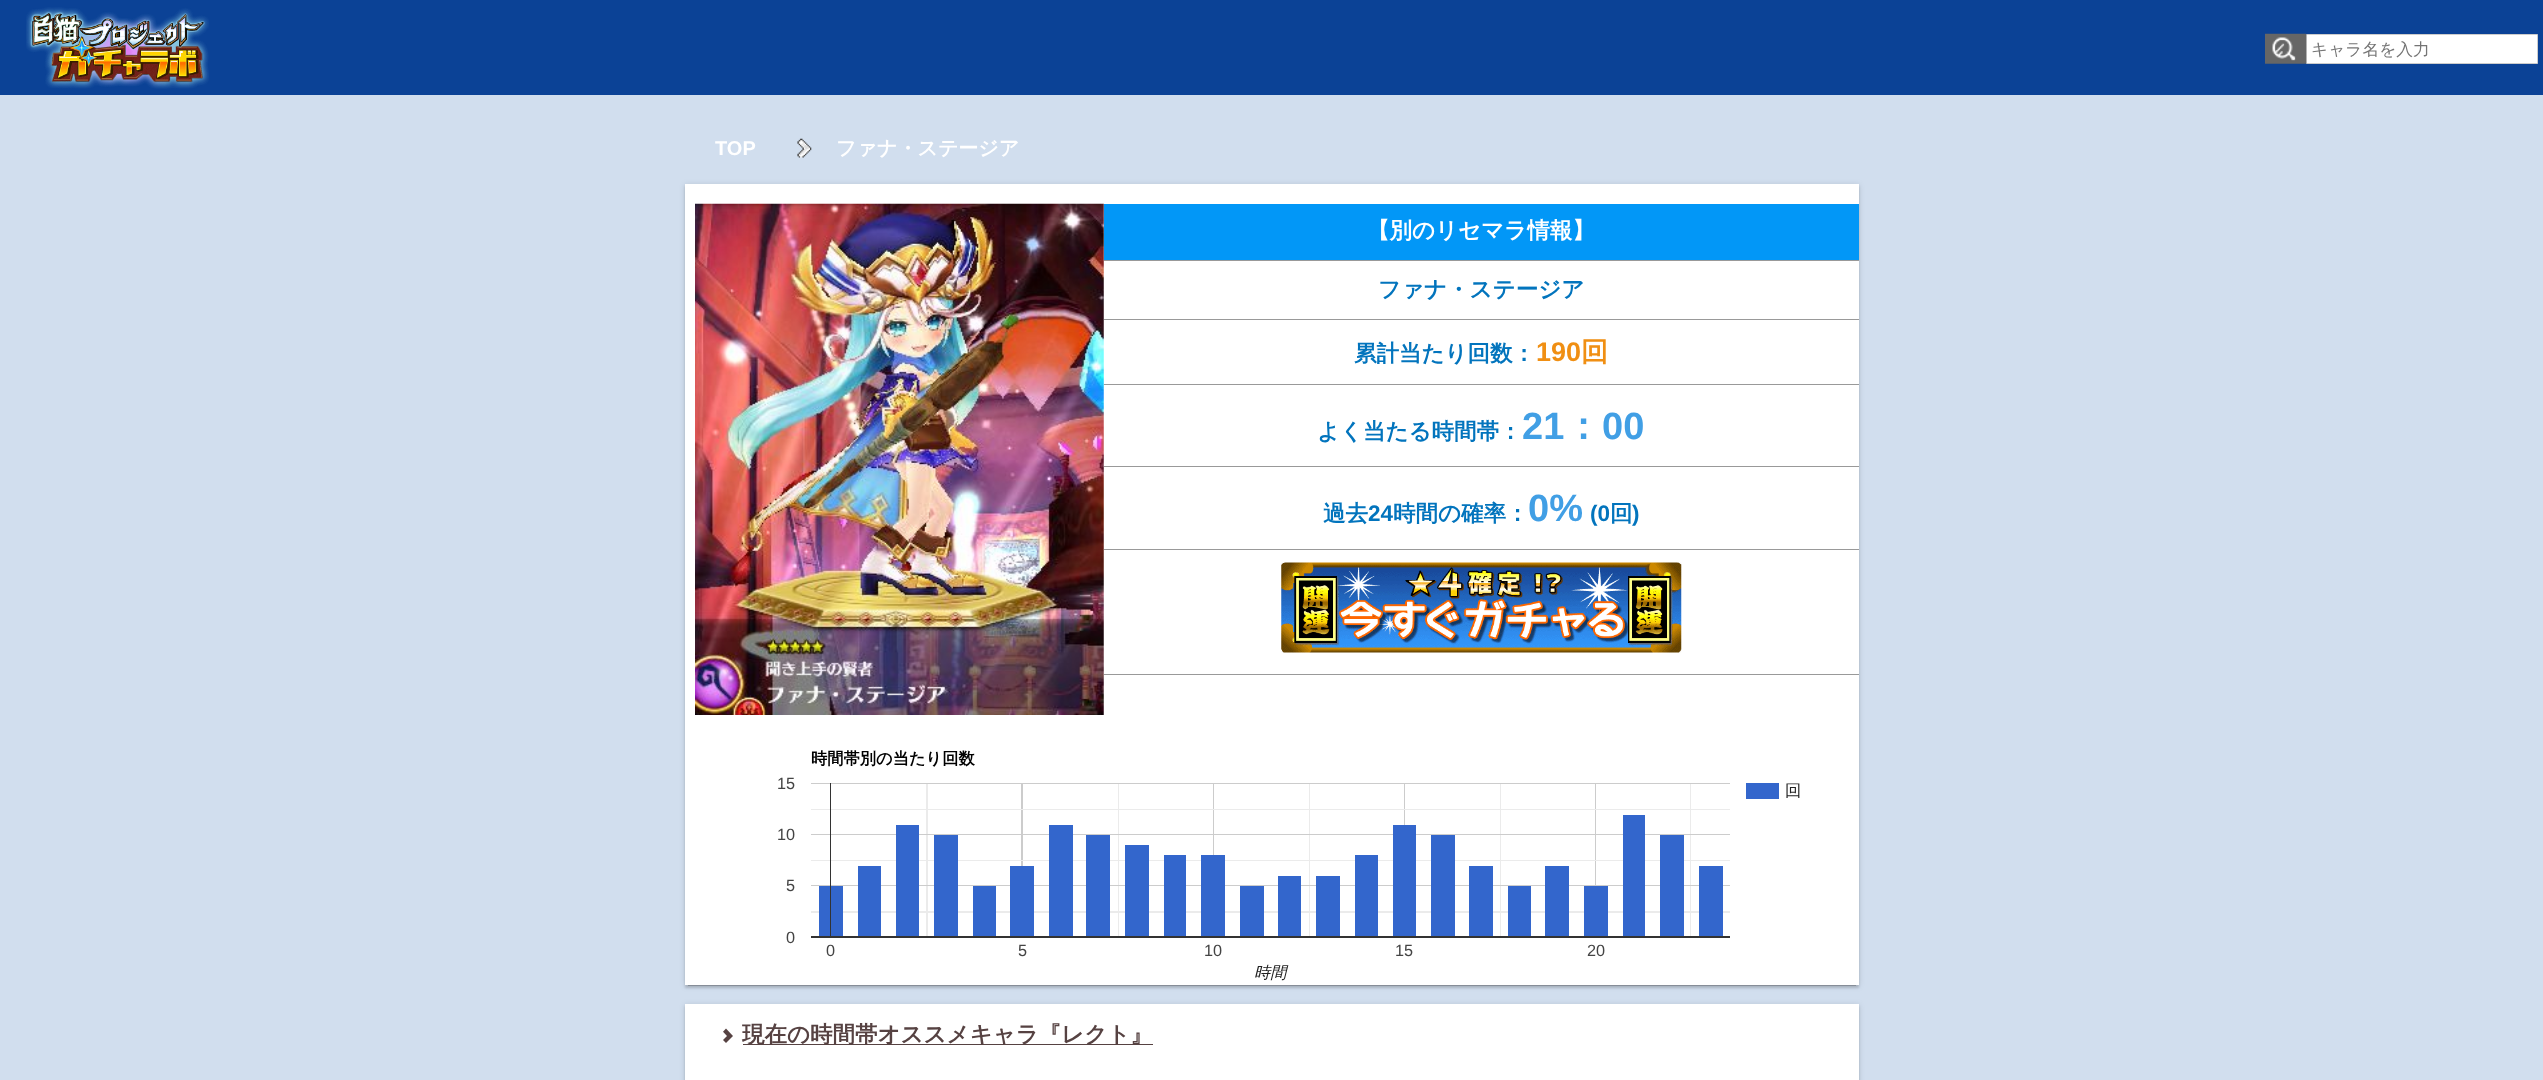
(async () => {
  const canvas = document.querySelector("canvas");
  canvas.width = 2543;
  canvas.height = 1080;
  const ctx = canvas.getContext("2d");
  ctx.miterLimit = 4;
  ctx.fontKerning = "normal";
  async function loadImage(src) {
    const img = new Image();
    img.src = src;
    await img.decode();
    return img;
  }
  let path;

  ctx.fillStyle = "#d1deee";
  ctx.fillRect(0, 0, 2543, 1080);
  ctx.fillStyle = "#0b4296";
  ctx.fillRect(0, 0, 2543, 95);
  ctx.drawImage(await loadImage("img/1.png"), 26, 7, 183, 82);
  ctx.fillStyle = "#ffffff";
  ctx.beginPath();
  ctx.rect(2306.5, 34.5, 231, 29);
  ctx.fill();
  ctx.strokeStyle = "#cccccc";
  ctx.stroke();
  ctx.drawImage(await loadImage("img/2.png"), 2265, 33, 42, 31);
  ctx.drawImage(await loadImage("img/3.png"), 797, 138, 15, 20);
  ctx.fillStyle = "rgba(0, 0, 0, 0.12)";
  ctx.filter = "blur(3px)";
  ctx.beginPath();
  ctx.rect(685, 185, 1174, 801);
  ctx.fill();
  ctx.filter = "none";
  ctx.fillStyle = "rgba(0, 0, 0, 0.2)";
  ctx.filter = "blur(0.5px)";
  ctx.beginPath();
  ctx.rect(688, 190, 1168, 796);
  ctx.fill();
  ctx.filter = "none";
  ctx.fillStyle = "rgba(0, 0, 0, 0.14)";
  ctx.filter = "blur(1px)";
  ctx.beginPath();
  ctx.rect(685, 186, 1174, 802);
  ctx.fill();
  ctx.filter = "none";
  ctx.fillStyle = "#ffffff";
  ctx.fillRect(685, 184, 1174, 801);
  ctx.drawImage(await loadImage("img/4.png"), 695, 203, 409, 512);
  for (const [x, y, w, h, color] of [
    [1104, 204, 755, 56, "#0297f7"],
    [1104, 260, 755, 1, "#999999"],
    [1104, 319, 755, 1, "#999999"],
    [1104, 384, 755, 1, "#999999"],
    [1104, 466, 755, 1, "#999999"],
    [1104, 549, 755, 1, "#999999"],
    [1104, 674, 755, 1, "#999999"],
  ]) {
    ctx.fillStyle = color;
    ctx.fillRect(x, y, w, h);
  }
  ctx.drawImage(await loadImage("img/5.png"), 1281, 562, 401, 91);
  ctx.drawImage(await loadImage("img/6.png"), 811, 783, 968, 155);
  ctx.fillStyle = "rgba(0, 0, 0, 0.12)";
  ctx.filter = "blur(3px)";
  ctx.beginPath();
  ctx.rect(685, 1005, 1174, 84);
  ctx.fill();
  ctx.filter = "none";
  ctx.fillStyle = "rgba(0, 0, 0, 0.14)";
  ctx.filter = "blur(1px)";
  ctx.beginPath();
  ctx.rect(685, 1006, 1174, 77);
  ctx.fill();
  ctx.filter = "none";
  ctx.fillStyle = "#ffffff";
  ctx.fillRect(685, 1004, 1174, 76);
  ctx.fillStyle = "#564242";
  path = new Path2D("M726 1028.5L733 1036L726 1043L719 1036Z");
  ctx.fill(path);
  ctx.fillStyle = "#ffffff";
  path = new Path2D("M720 1028.5L727 1036L720 1043L712.5 1036Z");
  ctx.fill(path);
  ctx.fillStyle = "#564242";
  ctx.fillRect(743, 1044, 410, 1);
  ctx.font = "500 16.75px WenQuanYi Zen Hei";
  ctx.fillStyle = "#757575";
  ctx.fillText("キャラ名を入力", 2311, 55);
  ctx.font = "bold 20px Liberation Sans";
  ctx.fillStyle = "#ffffff";
  ctx.fillText("TOP", 715, 155);
  ctx.font = "bold 20px WenQuanYi Zen Hei";
  ctx.fillText("ファナ・ステージア", 836, 155);
  ctx.font = "bold 22.5px WenQuanYi Zen Hei";
  ctx.fillText("【別のリセマラ情報】", 1367, 238);
  ctx.fillStyle = "#0274bd";
  ctx.fillText("ファナ・ステージア", 1378, 297);
  ctx.fillText("累計当たり回数：", 1354, 361);
  ctx.font = "bold 27px Liberation Sans";
  ctx.fillStyle = "#f08f13";
  ctx.fillText("190", 1536, 361);
  ctx.font = "bold 27px WenQuanYi Zen Hei";
  ctx.fillText("回", 1581, 361);
  ctx.font = "bold 22.5px WenQuanYi Zen Hei";
  ctx.fillStyle = "#0274bd";
  ctx.fillText("よく当たる時間帯：", 1317, 439);
  ctx.font = "bold 38px Liberation Sans";
  ctx.fillStyle = "#419fe5";
  ctx.fillText("21", 1522, 439);
  ctx.font = "bold 38px WenQuanYi Zen Hei";
  ctx.fillText("：", 1564, 439);
  ctx.font = "bold 38px Liberation Sans";
  ctx.fillText("00", 1602, 439);
  ctx.font = "bold 22.5px WenQuanYi Zen Hei";
  ctx.fillStyle = "#0274bd";
  ctx.fillText("過去", 1323, 521);
  ctx.font = "bold 22.5px Liberation Sans";
  ctx.fillText("24", 1368, 521);
  ctx.font = "bold 22.5px WenQuanYi Zen Hei";
  ctx.fillText("時間の確率：", 1393, 521);
  ctx.font = "bold 38px Liberation Sans";
  ctx.fillStyle = "#419fe5";
  ctx.fillText("0%", 1528, 521);
  ctx.font = "bold 22.5px Liberation Sans";
  ctx.fillStyle = "#0274bd";
  ctx.fillText("(0", 1590, 521);
  ctx.font = "bold 22.5px WenQuanYi Zen Hei";
  ctx.fillText("回", 1610, 521);
  ctx.font = "bold 22.5px Liberation Sans";
  ctx.fillText(")", 1632, 521);
  ctx.font = "bold 16.25px WenQuanYi Zen Hei";
  ctx.fillStyle = "#000000";
  ctx.fillText("時間帯別の当たり回数", 811, 764);
  ctx.font = "16.25px Liberation Sans";
  ctx.fillStyle = "#444444";
  ctx.fillText("15", 777, 789);
  ctx.font = "500 16.25px WenQuanYi Zen Hei";
  ctx.fillStyle = "#222222";
  ctx.fillText("回", 1785, 796);
  ctx.font = "16.25px Liberation Sans";
  ctx.fillStyle = "#444444";
  for (const [text, x, y] of [
    ["10", 777, 840],
    ["5", 786, 891],
    ["0", 786, 943],
    ["0", 826, 956],
    ["5", 1018, 956],
    ["10", 1204, 956],
    ["15", 1395, 956],
    ["20", 1587, 956],
  ]) {
    ctx.fillText(text, x, y);
  }
  ctx.font = "italic 500 16.25px WenQuanYi Zen Hei";
  ctx.fillStyle = "#222222";
  ctx.fillText("時間", 1254, 978);
  ctx.font = "bold 22.5px WenQuanYi Zen Hei";
  ctx.fillStyle = "#564242";
  ctx.fillText("現在の時間帯オススメキャラ『レクト』", 742, 1042);
})();
